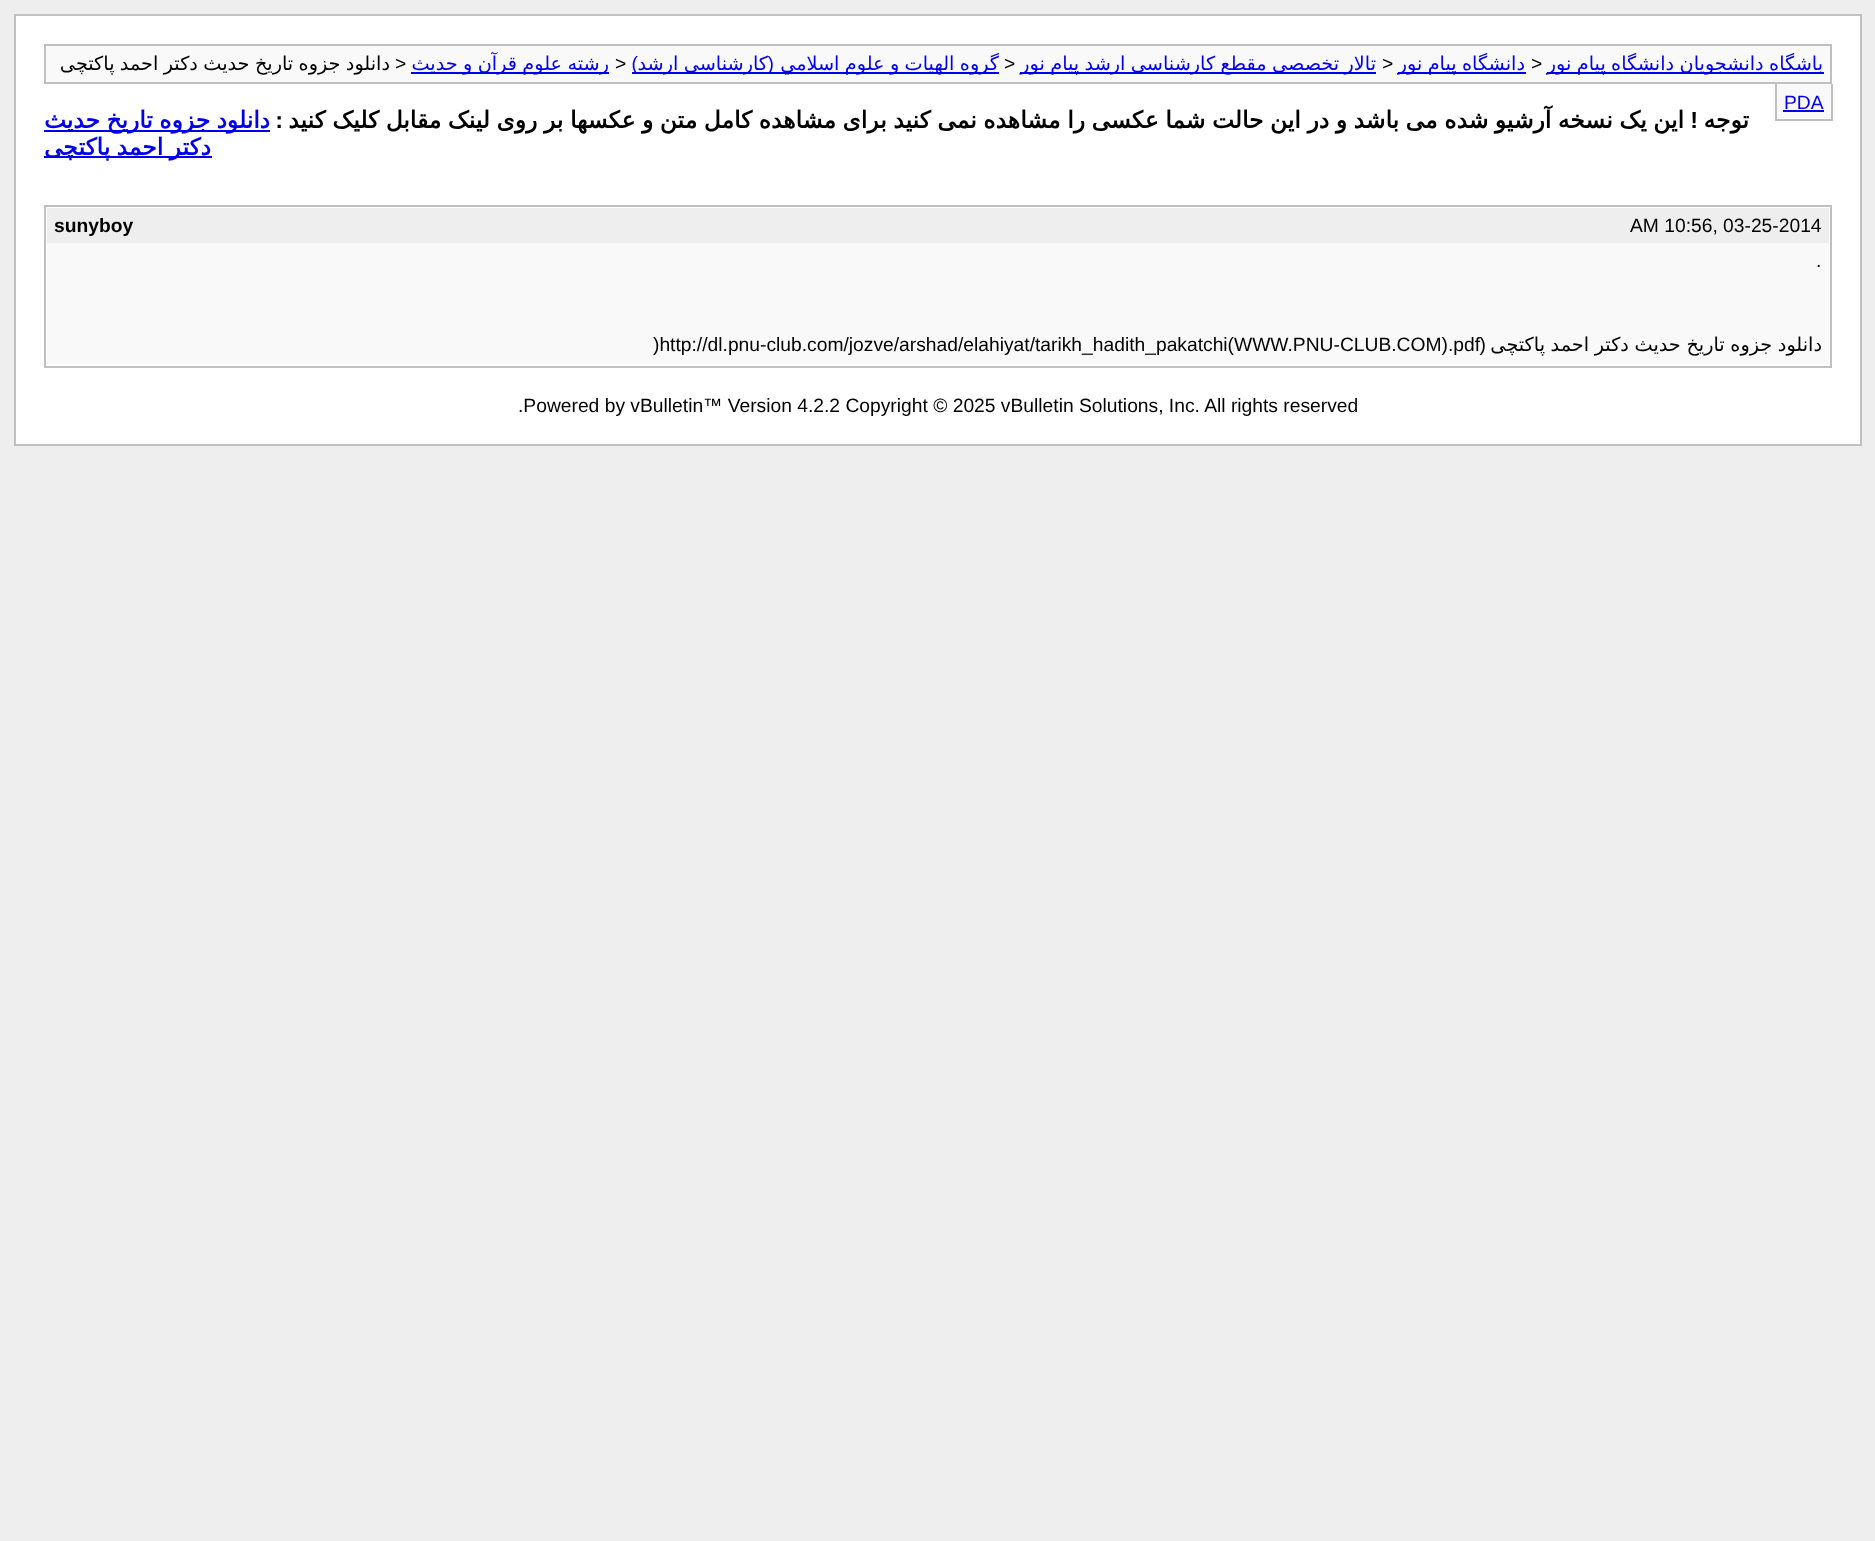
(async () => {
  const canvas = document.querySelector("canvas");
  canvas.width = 1875;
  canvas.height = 1541;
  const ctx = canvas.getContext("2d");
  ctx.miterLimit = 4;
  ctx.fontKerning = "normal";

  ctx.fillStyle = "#eeeeee";
  ctx.fillRect(0, 0, 1875, 1541);
  ctx.fillStyle = "#ffffff";
  ctx.beginPath();
  ctx.rect(15, 15, 1846, 430);
  ctx.fill();
  ctx.strokeStyle = "#c0c0c0";
  ctx.lineWidth = 2;
  ctx.stroke();
  ctx.fillStyle = "#f9f9f9";
  ctx.beginPath();
  ctx.rect(45, 45, 1786, 38);
  ctx.fill();
  ctx.stroke();
  for (const [x, y, w, h, color] of [
    [1547, 72, 277, 2, "#0000ee"],
    [1398, 72, 128, 2, "#0000ee"],
    [1020, 72, 356, 2, "#0000ee"],
    [632, 72, 367, 2, "#0000ee"],
    [411, 72, 198, 2, "#0000ee"],
    [1777, 84, 54, 35, "#f9f9f9"],
    [1831, 84, 2, 37, "#c0c0c0"],
    [1775, 119, 57, 2, "#c0c0c0"],
    [1775, 84, 2, 37, "#c0c0c0"],
    [1783, 110, 41, 2, "#0000ee"],
    [44, 130, 226, 2, "#0000ee"],
    [44, 156, 168, 2, "#0000ee"],
  ]) {
    ctx.fillStyle = color;
    ctx.fillRect(x, y, w, h);
  }
  ctx.strokeRect(45, 206, 1786, 161);
  ctx.fillStyle = "#eeeeee";
  ctx.fillRect(47, 208, 1782, 35);
  ctx.fillStyle = "#f9f9f9";
  ctx.fillRect(47, 243, 1782, 121);
  ctx.wordSpacing = "-0.75px";
  ctx.direction = "rtl";
  ctx.font = "19.25px DejaVu Sans";
  ctx.fillStyle = "#0000ee";
  ctx.fillText("باشگاه دانشجویان دانشگاه پیام نور", 1823, 70);
  ctx.wordSpacing = "0px";
  ctx.direction = "ltr";
  ctx.font = "19.25px Liberation Sans";
  ctx.fillStyle = "#000000";
  ctx.fillText(">", 1531, 70);
  ctx.wordSpacing = "-0.75px";
  ctx.direction = "rtl";
  ctx.font = "19.25px DejaVu Sans";
  ctx.fillStyle = "#0000ee";
  ctx.fillText("دانشگاه پیام نور", 1525, 70);
  ctx.wordSpacing = "0px";
  ctx.direction = "ltr";
  ctx.font = "19.25px Liberation Sans";
  ctx.fillStyle = "#000000";
  ctx.fillText(">", 1382, 70);
  ctx.wordSpacing = "-0.75px";
  ctx.direction = "rtl";
  ctx.font = "19.25px DejaVu Sans";
  ctx.fillStyle = "#0000ee";
  ctx.fillText("تالار تخصصی مقطع کارشناسی ارشد پیام نور", 1376, 70);
  ctx.wordSpacing = "0px";
  ctx.direction = "ltr";
  ctx.font = "19.25px Liberation Sans";
  ctx.fillStyle = "#000000";
  ctx.fillText(">", 1004, 70);
  ctx.wordSpacing = "-0.75px";
  ctx.direction = "rtl";
  ctx.font = "19.25px DejaVu Sans";
  ctx.fillStyle = "#0000ee";
  ctx.fillText("گروه الهيات و علوم اسلامي", 999, 70);
  ctx.wordSpacing = "0px";
  ctx.font = "19.25px Liberation Sans";
  ctx.fillText("(", 774, 70);
  ctx.wordSpacing = "-0.75px";
  ctx.font = "19.25px DejaVu Sans";
  ctx.fillText("کارشناسی ارشد", 768, 70);
  ctx.wordSpacing = "0px";
  ctx.font = "19.25px Liberation Sans";
  ctx.fillText(")", 638, 70);
  ctx.direction = "ltr";
  ctx.fillStyle = "#000000";
  ctx.fillText(">", 615, 70);
  ctx.wordSpacing = "-0.75px";
  ctx.direction = "rtl";
  ctx.font = "19.25px DejaVu Sans";
  ctx.fillStyle = "#0000ee";
  ctx.fillText("رشته علوم قرآن و حديث", 609, 70);
  ctx.wordSpacing = "0px";
  ctx.direction = "ltr";
  ctx.font = "19.25px Liberation Sans";
  ctx.fillStyle = "#000000";
  ctx.fillText(">", 395, 70);
  ctx.wordSpacing = "-0.75px";
  ctx.direction = "rtl";
  ctx.font = "19.25px DejaVu Sans";
  ctx.fillText("دانلود جزوه تاریخ حدیث دکتر احمد پاکتچی", 390, 70);
  ctx.wordSpacing = "0px";
  ctx.direction = "ltr";
  ctx.font = "19.25px Liberation Sans";
  ctx.fillStyle = "#0000ee";
  ctx.fillText("PDA", 1784, 109);
  ctx.direction = "rtl";
  ctx.font = "bold 23.33px DejaVu Sans";
  ctx.fillStyle = "#000000";
  ctx.fillText("توجه", 1749, 128);
  ctx.font = "bold 23.33px Liberation Sans";
  ctx.fillText("!", 1698, 128);
  ctx.wordSpacing = "-0.8px";
  ctx.font = "bold 23.33px DejaVu Sans";
  ctx.fillText("این یک نسخه آرشیو شده می باشد و در این حالت شما عکسی را مشاهده نمی کنید برای مشاهده کامل متن و عکسها بر روی لینک مقابل کلیک کنید", 1684, 128);
  ctx.wordSpacing = "0px";
  ctx.font = "bold 23.33px Liberation Sans";
  ctx.fillText(":", 283, 128);
  ctx.wordSpacing = "-1px";
  ctx.font = "bold 23.33px DejaVu Sans";
  ctx.fillStyle = "#0000ee";
  ctx.fillText("دانلود جزوه تاریخ حدیث", 270, 128);
  ctx.fillText("دکتر احمد پاکتچی", 211, 155);
  ctx.wordSpacing = "0px";
  ctx.direction = "ltr";
  ctx.font = "19.25px Liberation Sans";
  ctx.fillStyle = "#000000";
  ctx.fillText("AM 10:56, 03-25-2014", 1630, 232);
  ctx.font = "bold 19.25px Liberation Sans";
  ctx.fillText("sunyboy", 54, 232);
  ctx.font = "19.25px Liberation Sans";
  ctx.fillText(".", 1816, 267);
  ctx.wordSpacing = "-0.5px";
  ctx.direction = "rtl";
  ctx.font = "19.25px DejaVu Sans";
  ctx.fillText("دانلود جزوه تاریخ حدیث دکتر احمد پاکتچی", 1822, 351);
  ctx.wordSpacing = "0px";
  ctx.font = "19.25px Liberation Sans";
  ctx.fillText("(", 1486, 351);
  ctx.direction = "ltr";
  ctx.fillText(")http://dl.pnu-club.com/jozve/arshad/elahiyat/tarikh_hadith_pakatchi(WWW.PNU-CLUB.COM).pdf", 653, 351);
  ctx.fillText(".Powered by vBulletin™ Version 4.2.2 Copyright © 2025 vBulletin Solutions, Inc. All rights reserved", 518, 412);
})();
